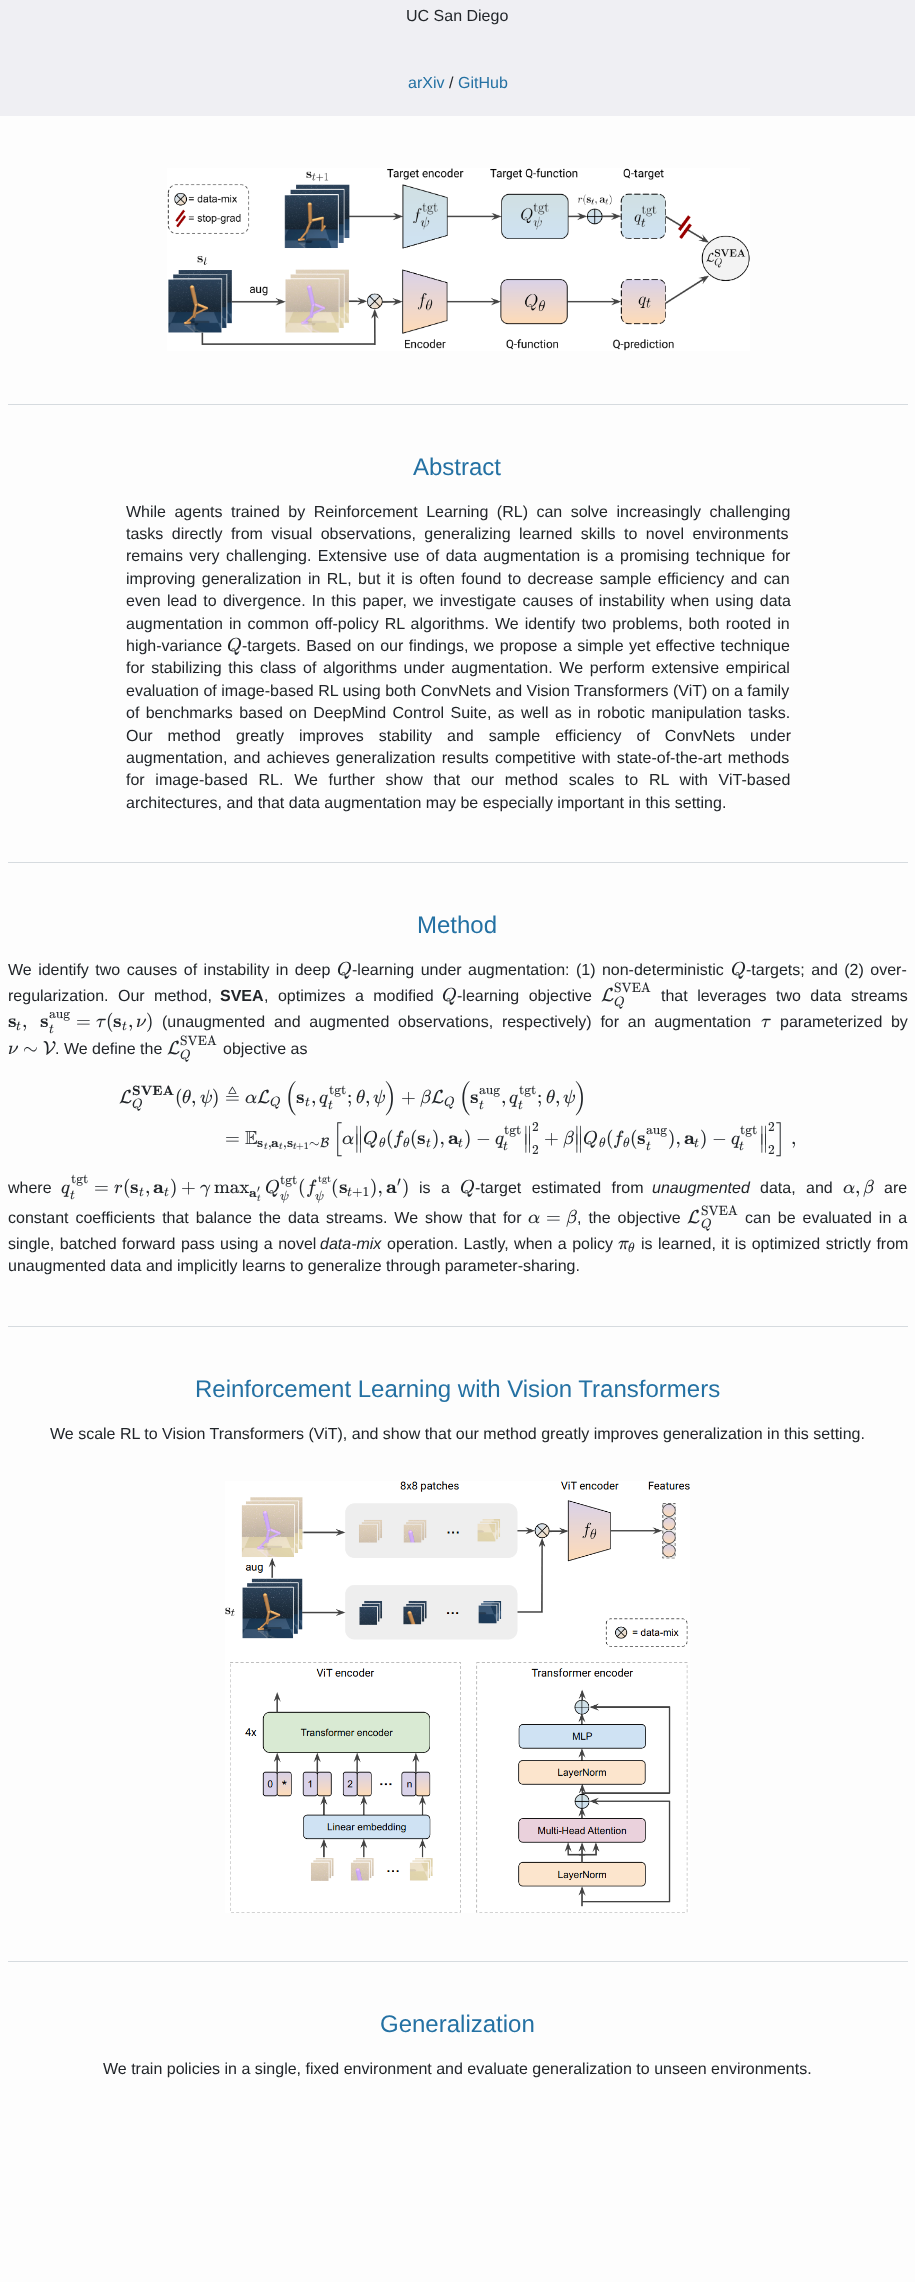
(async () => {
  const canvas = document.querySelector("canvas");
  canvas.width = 915;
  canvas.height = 2282;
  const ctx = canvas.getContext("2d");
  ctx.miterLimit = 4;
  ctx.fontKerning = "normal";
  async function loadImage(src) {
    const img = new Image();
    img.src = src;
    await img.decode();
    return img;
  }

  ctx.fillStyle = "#fdfdfd";
  ctx.fillRect(0, 0, 915, 2282);
  ctx.fillStyle = "#efeff3";
  ctx.fillRect(0, 0, 915, 116);
  ctx.drawImage(await loadImage("img/1.png"), 167, 168, 583, 183);
  for (const [x, y, w, h, color] of [
    [8, 404, 900, 1, "#d6dbdf"],
    [8, 862, 900, 1, "#d6dbdf"],
    [8, 1326, 900, 1, "#d6dbdf"],
  ]) {
    ctx.fillStyle = color;
    ctx.fillRect(x, y, w, h);
  }
  ctx.drawImage(await loadImage("img/2.png"), 225, 1481, 465, 432);
  ctx.fillRect(8, 1961, 900, 1);
  ctx.font = "16px Liberation Sans";
  ctx.fillStyle = "#212529";
  ctx.fillText("UC San Diego", 406, 21);
  ctx.fillStyle = "#2471a3";
  ctx.fillText("arXiv", 408, 88);
  ctx.fillStyle = "#212529";
  ctx.fillText("/", 449, 88);
  ctx.fillStyle = "#2471a3";
  ctx.fillText("GitHub", 458, 88);
  ctx.font = "24px Liberation Sans";
  ctx.fillText("Abstract", 413, 475);
  ctx.wordSpacing = "4px";
  ctx.font = "16px Liberation Sans";
  ctx.fillStyle = "#212529";
  ctx.fillText("While agents trained by Reinforcement Learning (RL) can solve increasingly challenging", 126, 517);
  ctx.fillText("tasks directly from visual observations, generalizing learned skills to novel environments", 126, 539);
  ctx.wordSpacing = "2px";
  ctx.fillText("remains very challenging. Extensive use of data augmentation is a promising technique for", 126, 561);
  ctx.fillText("improving generalization in RL, but it is often found to decrease sample efficiency and can", 126, 584);
  ctx.wordSpacing = "1.75px";
  ctx.fillText("even lead to divergence. In this paper, we investigate causes of instability when using data", 126, 606);
  ctx.wordSpacing = "1.6px";
  ctx.fillText("augmentation in common off-policy RL algorithms. We identify two problems, both rooted in", 126, 629);
  ctx.wordSpacing = "0px";
  ctx.fillText("high-variance", 126, 651);
  ctx.font = "italic 19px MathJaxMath";
  ctx.fillText("Q", 227, 651);
  ctx.wordSpacing = "1px";
  ctx.font = "16px Liberation Sans";
  ctx.fillText("-targets. Based on our findings, we propose a simple yet effective technique", 242, 651);
  ctx.wordSpacing = "2.25px";
  ctx.fillText("for stabilizing this class of algorithms under augmentation. We perform extensive empirical", 126, 673);
  ctx.wordSpacing = "0px";
  ctx.fillText("evaluation of image-based RL using both ConvNets and Vision Transformers (ViT) on a family", 126, 696);
  ctx.wordSpacing = "1.9px";
  ctx.fillText("of benchmarks based on DeepMind Control Suite, as well as in robotic manipulation tasks.", 126, 718);
  ctx.wordSpacing = "10.5px";
  ctx.fillText("Our method greatly improves stability and sample efficiency of ConvNets under", 126, 741);
  ctx.wordSpacing = "1.75px";
  ctx.fillText("augmentation, and achieves generalization results competitive with state-of-the-art methods", 126, 763);
  ctx.wordSpacing = "6.25px";
  ctx.fillText("for image-based RL. We further show that our method scales to RL with ViT-based", 126, 785);
  ctx.wordSpacing = "0px";
  ctx.fillText("architectures, and that data augmentation may be especially important in this setting.", 126, 808);
  ctx.font = "24px Liberation Sans";
  ctx.fillStyle = "#2471a3";
  ctx.fillText("Method", 417, 933);
  ctx.wordSpacing = "2px";
  ctx.font = "16px Liberation Sans";
  ctx.fillStyle = "#212529";
  ctx.fillText("We identify two causes of instability in deep", 8, 975);
  ctx.wordSpacing = "0px";
  ctx.font = "italic 19px MathJaxMath";
  ctx.fillText("Q", 337, 975);
  ctx.wordSpacing = "2px";
  ctx.font = "16px Liberation Sans";
  ctx.fillText("-learning under augmentation: (1) non-deterministic", 352, 975);
  ctx.wordSpacing = "0px";
  ctx.font = "italic 19px MathJaxMath";
  ctx.fillText("Q", 731, 975);
  ctx.wordSpacing = "2px";
  ctx.font = "16px Liberation Sans";
  ctx.fillText("-targets; and (2) over-", 746, 975);
  ctx.wordSpacing = "5px";
  ctx.fillText("regularization. Our method,", 8, 1001);
  ctx.wordSpacing = "0px";
  ctx.font = "bold 16px Liberation Sans";
  ctx.fillText("SVEA", 220, 1001);
  ctx.wordSpacing = "5px";
  ctx.font = "16px Liberation Sans";
  ctx.fillText(", optimizes a modified", 264, 1001);
  ctx.wordSpacing = "0px";
  ctx.font = "italic 19px MathJaxMath";
  ctx.fillText("Q", 442, 1001);
  ctx.wordSpacing = "5px";
  ctx.font = "16px Liberation Sans";
  ctx.fillText("-learning objective", 457, 1001);
  ctx.wordSpacing = "0px";
  ctx.font = "19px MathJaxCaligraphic";
  ctx.fillText("L", 601, 1001);
  ctx.font = "13.5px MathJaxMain";
  ctx.fillText("SVEA", 614, 992);
  ctx.font = "italic 13.5px MathJaxMath";
  ctx.fillText("Q", 614, 1006);
  ctx.wordSpacing = "5px";
  ctx.font = "16px Liberation Sans";
  ctx.fillText("that leverages two data streams", 661, 1001);
  ctx.wordSpacing = "0px";
  ctx.font = "bold 19px MathJaxMain";
  ctx.fillText("s", 8, 1027);
  ctx.font = "italic 13.5px MathJaxMath";
  ctx.fillText("t", 16, 1030);
  ctx.font = "bold 19px MathJaxMain";
  ctx.fillText("s", 40, 1027);
  ctx.font = "13.5px MathJaxMain";
  ctx.fillText("aug", 49, 1018);
  ctx.font = "italic 13.5px MathJaxMath";
  ctx.fillText("t", 49, 1033);
  ctx.font = "19px MathJaxMain";
  ctx.fillText("=", 76, 1027);
  ctx.font = "italic 19px MathJaxMath";
  ctx.fillText("τ", 96, 1027);
  ctx.font = "19px MathJaxMain";
  ctx.fillText("(", 106, 1027);
  ctx.font = "bold 19px MathJaxMain";
  ctx.fillText("s", 113, 1027);
  ctx.font = "italic 13.5px MathJaxMath";
  ctx.fillText("t", 122, 1030);
  ctx.font = "italic 19px MathJaxMath";
  ctx.fillText("ν", 136, 1027);
  ctx.font = "19px MathJaxMain";
  for (const [text, x, y] of [
    [")", 146, 1027],
    [",", 22, 1027],
    [",", 128, 1027],
  ]) {
    ctx.fillText(text, x, y);
  }
  ctx.wordSpacing = "4.25px";
  ctx.font = "16px Liberation Sans";
  ctx.fillText("(unaugmented and augmented observations, respectively) for an augmentation", 162, 1027);
  ctx.wordSpacing = "0px";
  ctx.font = "italic 19px MathJaxMath";
  ctx.fillText("τ", 761, 1027);
  ctx.wordSpacing = "4.25px";
  ctx.font = "16px Liberation Sans";
  ctx.fillText("parameterized by", 780, 1027);
  ctx.wordSpacing = "0px";
  ctx.font = "italic 19px MathJaxMath";
  ctx.fillText("ν", 8, 1054);
  ctx.font = "19px MathJaxMain";
  ctx.fillText("∼", 23, 1054);
  ctx.font = "19px MathJaxCaligraphic";
  ctx.fillText("V", 43, 1054);
  ctx.font = "16px Liberation Sans";
  ctx.fillText(". We define the", 55, 1054);
  ctx.font = "19px MathJaxCaligraphic";
  ctx.fillText("L", 167, 1054);
  ctx.font = "13.5px MathJaxMain";
  ctx.fillText("SVEA", 180, 1045);
  ctx.font = "italic 13.5px MathJaxMath";
  ctx.fillText("Q", 180, 1059);
  ctx.font = "16px Liberation Sans";
  ctx.fillText("objective as", 223, 1054);
  ctx.font = "19px MathJaxCaligraphic";
  ctx.fillText("L", 119, 1103);
  ctx.font = "bold 13.5px MathJaxMain";
  ctx.fillText("SVEA", 132, 1095);
  ctx.font = "italic 13.5px MathJaxMath";
  ctx.fillText("Q", 132, 1108);
  ctx.font = "19px MathJaxMain";
  ctx.fillText("(", 175, 1103);
  ctx.font = "italic 19px MathJaxMath";
  ctx.fillText("θ", 182, 1103);
  ctx.font = "19px MathJaxMain";
  ctx.fillText(",", 191, 1103);
  ctx.font = "italic 19px MathJaxMath";
  ctx.fillText("ψ", 200, 1103);
  ctx.font = "19px MathJaxMain";
  ctx.fillText(")", 212, 1103);
  ctx.font = "19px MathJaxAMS";
  ctx.fillText("≜", 225, 1103);
  ctx.font = "italic 19px MathJaxMath";
  ctx.fillText("α", 245, 1103);
  ctx.font = "19px MathJaxCaligraphic";
  ctx.fillText("L", 257, 1103);
  ctx.font = "italic 13.5px MathJaxMath";
  ctx.fillText("Q", 270, 1106);
  ctx.font = "19px 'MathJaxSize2'";
  ctx.fillText("(", 285, 1103);
  ctx.font = "bold 19px MathJaxMain";
  ctx.fillText("s", 296, 1103);
  ctx.font = "italic 13.5px MathJaxMath";
  ctx.fillText("t", 305, 1106);
  ctx.font = "19px MathJaxMain";
  ctx.fillText(",", 311, 1103);
  ctx.font = "italic 19px MathJaxMath";
  ctx.fillText("q", 319, 1103);
  ctx.font = "13.5px MathJaxMain";
  ctx.fillText("tgt", 329, 1094);
  ctx.font = "italic 13.5px MathJaxMath";
  ctx.fillText("t", 328, 1109);
  ctx.font = "19px MathJaxMain";
  ctx.fillText(";", 347, 1103);
  ctx.font = "italic 19px MathJaxMath";
  ctx.fillText("θ", 356, 1103);
  ctx.font = "19px MathJaxMain";
  ctx.fillText(",", 365, 1103);
  ctx.font = "italic 19px MathJaxMath";
  ctx.fillText("ψ", 373, 1103);
  ctx.font = "19px 'MathJaxSize2'";
  ctx.fillText(")", 385, 1103);
  ctx.font = "19px MathJaxMain";
  ctx.fillText("+", 401, 1103);
  ctx.font = "italic 19px MathJaxMath";
  ctx.fillText("β", 420, 1103);
  ctx.font = "19px MathJaxCaligraphic";
  ctx.fillText("L", 431, 1103);
  ctx.font = "italic 13.5px MathJaxMath";
  ctx.fillText("Q", 444, 1106);
  ctx.font = "19px 'MathJaxSize2'";
  ctx.fillText("(", 459, 1103);
  ctx.font = "bold 19px MathJaxMain";
  ctx.fillText("s", 470, 1103);
  ctx.font = "13.5px MathJaxMain";
  ctx.fillText("aug", 479, 1094);
  ctx.font = "italic 13.5px MathJaxMath";
  ctx.fillText("t", 479, 1109);
  ctx.font = "19px MathJaxMain";
  ctx.fillText(",", 501, 1103);
  ctx.font = "italic 19px MathJaxMath";
  ctx.fillText("q", 509, 1103);
  ctx.font = "13.5px MathJaxMain";
  ctx.fillText("tgt", 519, 1094);
  ctx.font = "italic 13.5px MathJaxMath";
  ctx.fillText("t", 518, 1109);
  ctx.font = "19px MathJaxMain";
  ctx.fillText(";", 537, 1103);
  ctx.font = "italic 19px MathJaxMath";
  ctx.fillText("θ", 546, 1103);
  ctx.font = "19px MathJaxMain";
  ctx.fillText(",", 555, 1103);
  ctx.font = "italic 19px MathJaxMath";
  ctx.fillText("ψ", 563, 1103);
  ctx.font = "19px 'MathJaxSize2'";
  ctx.fillText(")", 575, 1103);
  ctx.font = "19px MathJaxMain";
  ctx.fillText("=", 225, 1144);
  ctx.font = "19px MathJaxAMS";
  ctx.fillText("E", 245, 1144);
  ctx.font = "bold 13.5px MathJaxMain";
  ctx.fillText("s", 257, 1147);
  ctx.font = "italic 10px MathJaxMath";
  ctx.fillText("t", 264, 1149);
  ctx.font = "bold 13.5px MathJaxMain";
  ctx.fillText("a", 271, 1147);
  ctx.font = "italic 10px MathJaxMath";
  ctx.fillText("t", 279, 1149);
  ctx.font = "bold 13.5px MathJaxMain";
  ctx.fillText("s", 287, 1147);
  ctx.font = "italic 10px MathJaxMath";
  ctx.fillText("t", 293, 1149);
  ctx.font = "10px MathJaxMain";
  ctx.fillText("+1", 296, 1149);
  ctx.font = "13.5px MathJaxMain";
  ctx.fillText("∼", 309, 1147);
  ctx.font = "13.5px MathJaxCaligraphic";
  ctx.fillText("B", 320, 1147);
  ctx.font = "13.5px MathJaxMain";
  ctx.fillText(",", 268, 1147);
  ctx.fillText(",", 283, 1147);
  ctx.font = "19px 'MathJaxSize2'";
  ctx.fillText("[", 333, 1144);
  ctx.font = "italic 19px MathJaxMath";
  ctx.fillText("α", 342, 1144);
  ctx.font = "19px MathJaxMain";
  ctx.fillText("∥", 354, 1140);
  ctx.fillText("∥", 354, 1148);
  ctx.font = "italic 19px MathJaxMath";
  ctx.fillText("Q", 363, 1144);
  ctx.font = "italic 13.5px MathJaxMath";
  ctx.fillText("θ", 379, 1147);
  ctx.font = "19px MathJaxMain";
  ctx.fillText("(", 386, 1144);
  ctx.font = "italic 19px MathJaxMath";
  ctx.fillText("f", 393, 1144);
  ctx.font = "italic 13.5px MathJaxMath";
  ctx.fillText("θ", 403, 1147);
  ctx.font = "19px MathJaxMain";
  ctx.fillText("(", 410, 1144);
  ctx.font = "bold 19px MathJaxMain";
  ctx.fillText("s", 417, 1144);
  ctx.font = "italic 13.5px MathJaxMath";
  ctx.fillText("t", 426, 1147);
  ctx.font = "19px MathJaxMain";
  ctx.fillText("),", 432, 1144);
  ctx.font = "bold 19px MathJaxMain";
  ctx.fillText("a", 448, 1144);
  ctx.font = "italic 13.5px MathJaxMath";
  ctx.fillText("t", 458, 1147);
  ctx.font = "19px MathJaxMain";
  ctx.fillText(")", 464, 1144);
  ctx.fillText("−", 476, 1144);
  ctx.font = "italic 19px MathJaxMath";
  ctx.fillText("q", 495, 1144);
  ctx.font = "13.5px MathJaxMain";
  ctx.fillText("tgt", 504, 1134);
  ctx.font = "italic 13.5px MathJaxMath";
  ctx.fillText("t", 503, 1150);
  ctx.font = "19px MathJaxMain";
  ctx.fillText("∥", 523, 1140);
  ctx.fillText("∥", 523, 1148);
  ctx.font = "13.5px MathJaxMain";
  ctx.fillText("2", 532, 1131);
  ctx.fillText("2", 532, 1154);
  ctx.font = "19px MathJaxMain";
  ctx.fillText("+", 544, 1144);
  ctx.font = "italic 19px MathJaxMath";
  ctx.fillText("β", 563, 1144);
  ctx.font = "19px MathJaxMain";
  ctx.fillText("∥", 574, 1140);
  ctx.fillText("∥", 574, 1148);
  ctx.font = "italic 19px MathJaxMath";
  ctx.fillText("Q", 583, 1144);
  ctx.font = "italic 13.5px MathJaxMath";
  ctx.fillText("θ", 599, 1147);
  ctx.font = "19px MathJaxMain";
  ctx.fillText("(", 606, 1144);
  ctx.font = "italic 19px MathJaxMath";
  ctx.fillText("f", 613, 1144);
  ctx.font = "italic 13.5px MathJaxMath";
  ctx.fillText("θ", 623, 1147);
  ctx.font = "19px MathJaxMain";
  ctx.fillText("(", 630, 1144);
  ctx.font = "bold 19px MathJaxMain";
  ctx.fillText("s", 637, 1144);
  ctx.font = "13.5px MathJaxMain";
  ctx.fillText("aug", 646, 1134);
  ctx.font = "italic 13.5px MathJaxMath";
  ctx.fillText("t", 646, 1150);
  ctx.font = "19px MathJaxMain";
  ctx.fillText("),", 668, 1144);
  ctx.font = "bold 19px MathJaxMain";
  ctx.fillText("a", 684, 1144);
  ctx.font = "italic 13.5px MathJaxMath";
  ctx.fillText("t", 694, 1147);
  ctx.font = "19px MathJaxMain";
  ctx.fillText(")", 700, 1144);
  ctx.fillText("−", 712, 1144);
  ctx.font = "italic 19px MathJaxMath";
  ctx.fillText("q", 731, 1144);
  ctx.font = "13.5px MathJaxMain";
  ctx.fillText("tgt", 740, 1134);
  ctx.font = "italic 13.5px MathJaxMath";
  ctx.fillText("t", 739, 1150);
  ctx.font = "19px MathJaxMain";
  ctx.fillText("∥", 759, 1140);
  ctx.fillText("∥", 759, 1148);
  ctx.font = "13.5px MathJaxMain";
  ctx.fillText("2", 768, 1131);
  ctx.fillText("2", 768, 1154);
  ctx.font = "19px 'MathJaxSize2'";
  ctx.fillText("]", 776, 1144);
  ctx.font = "19px MathJaxMain";
  ctx.fillText(",", 791, 1144);
  ctx.font = "16px Liberation Sans";
  ctx.fillText("where", 8, 1193);
  ctx.font = "italic 19px MathJaxMath";
  ctx.fillText("q", 61, 1193);
  ctx.font = "13.5px MathJaxMain";
  ctx.fillText("tgt", 71, 1183);
  ctx.font = "italic 13.5px MathJaxMath";
  ctx.fillText("t", 70, 1199);
  ctx.font = "19px MathJaxMain";
  ctx.fillText("=", 94, 1193);
  ctx.font = "italic 19px MathJaxMath";
  ctx.fillText("r", 114, 1193);
  ctx.font = "19px MathJaxMain";
  ctx.fillText("(", 123, 1193);
  ctx.font = "bold 19px MathJaxMain";
  ctx.fillText("s", 130, 1193);
  ctx.font = "italic 13.5px MathJaxMath";
  ctx.fillText("t", 139, 1196);
  ctx.font = "bold 19px MathJaxMain";
  ctx.fillText("a", 153, 1193);
  ctx.font = "italic 13.5px MathJaxMath";
  ctx.fillText("t", 164, 1196);
  ctx.font = "19px MathJaxMain";
  ctx.fillText(")", 170, 1193);
  ctx.fillText("+", 181, 1193);
  ctx.font = "italic 19px MathJaxMath";
  ctx.fillText("γ", 200, 1193);
  ctx.font = "19px MathJaxMain";
  ctx.fillText("max", 214, 1193);
  ctx.font = "bold 13.5px MathJaxMain";
  ctx.fillText("a", 249, 1197);
  ctx.font = "10px MathJaxMain";
  ctx.fillText("′", 257, 1192);
  ctx.font = "italic 10px MathJaxMath";
  ctx.fillText("t", 257, 1201);
  ctx.font = "italic 19px MathJaxMath";
  ctx.fillText("Q", 265, 1193);
  ctx.font = "13.5px MathJaxMain";
  ctx.fillText("tgt", 280, 1184);
  ctx.font = "italic 13.5px MathJaxMath";
  ctx.fillText("ψ", 280, 1200);
  ctx.font = "19px MathJaxMain";
  ctx.fillText("(", 298, 1193);
  ctx.font = "italic 19px MathJaxMath";
  ctx.fillText("f", 306, 1193);
  ctx.font = "10px MathJaxMain";
  ctx.fillText("tgt", 318, 1182);
  ctx.font = "italic 13.5px MathJaxMath";
  ctx.fillText("ψ", 315, 1200);
  ctx.font = "19px MathJaxMain";
  ctx.fillText("(", 331, 1193);
  ctx.font = "bold 19px MathJaxMain";
  ctx.fillText("s", 339, 1193);
  ctx.font = "italic 13.5px MathJaxMath";
  ctx.fillText("t", 347, 1196);
  ctx.font = "13.5px MathJaxMain";
  ctx.fillText("+1", 352, 1196);
  ctx.font = "19px MathJaxMain";
  ctx.fillText("),", 370, 1193);
  ctx.font = "13.5px MathJaxMain";
  ctx.fillText("′", 397, 1186);
  ctx.font = "bold 19px MathJaxMain";
  ctx.fillText("a", 386, 1193);
  ctx.font = "19px MathJaxMain";
  ctx.fillText(")", 402, 1193);
  ctx.fillText(",", 145, 1193);
  ctx.wordSpacing = "6px";
  ctx.font = "16px Liberation Sans";
  ctx.fillText("is a", 419, 1193);
  ctx.wordSpacing = "0px";
  ctx.font = "italic 19px MathJaxMath";
  ctx.fillText("Q", 460, 1193);
  ctx.wordSpacing = "6px";
  ctx.font = "16px Liberation Sans";
  ctx.fillText("-target estimated from", 475, 1193);
  ctx.wordSpacing = "0px";
  ctx.font = "italic 16px Liberation Sans";
  ctx.fillText("unaugmented", 652, 1193);
  ctx.wordSpacing = "6px";
  ctx.font = "16px Liberation Sans";
  ctx.fillText("data, and", 760, 1193);
  ctx.wordSpacing = "0px";
  ctx.font = "italic 19px MathJaxMath";
  ctx.fillText("α", 843, 1193);
  ctx.font = "19px MathJaxMain";
  ctx.fillText(",", 855, 1193);
  ctx.font = "italic 19px MathJaxMath";
  ctx.fillText("β", 863, 1193);
  ctx.font = "16px Liberation Sans";
  ctx.fillText("are", 884, 1193);
  ctx.wordSpacing = "2.5px";
  ctx.fillText("constant coefficients that balance the data streams. We show that for", 8, 1223);
  ctx.wordSpacing = "0px";
  ctx.font = "italic 19px MathJaxMath";
  ctx.fillText("α", 528, 1223);
  ctx.font = "19px MathJaxMain";
  ctx.fillText("=", 546, 1223);
  ctx.font = "italic 19px MathJaxMath";
  ctx.fillText("β", 566, 1223);
  ctx.wordSpacing = "2.5px";
  ctx.font = "16px Liberation Sans";
  ctx.fillText(", the objective", 577, 1223);
  ctx.wordSpacing = "0px";
  ctx.font = "19px MathJaxCaligraphic";
  ctx.fillText("L", 687, 1223);
  ctx.font = "13.5px MathJaxMain";
  ctx.fillText("SVEA", 701, 1215);
  ctx.font = "italic 13.5px MathJaxMath";
  ctx.fillText("Q", 701, 1228);
  ctx.wordSpacing = "2.5px";
  ctx.font = "16px Liberation Sans";
  ctx.fillText("can be evaluated in a", 745, 1223);
  ctx.wordSpacing = "1px";
  ctx.fillText("single, batched forward pass using a novel", 8, 1249);
  ctx.wordSpacing = "0px";
  ctx.font = "italic 16px Liberation Sans";
  ctx.fillText("data-mix", 320, 1249);
  ctx.wordSpacing = "1px";
  ctx.font = "16px Liberation Sans";
  ctx.fillText("operation. Lastly, when a policy", 387, 1249);
  ctx.wordSpacing = "0px";
  ctx.font = "italic 19px MathJaxMath";
  ctx.fillText("π", 618, 1249);
  ctx.font = "italic 13.5px MathJaxMath";
  ctx.fillText("θ", 628, 1252);
  ctx.wordSpacing = "1px";
  ctx.font = "16px Liberation Sans";
  ctx.fillText("is learned, it is optimized strictly from", 641, 1249);
  ctx.wordSpacing = "0px";
  ctx.fillText("unaugmented data and implicitly learns to generalize through parameter-sharing.", 8, 1271);
  ctx.font = "24px Liberation Sans";
  ctx.fillStyle = "#2471a3";
  ctx.fillText("Reinforcement Learning with Vision Transformers", 195, 1397);
  ctx.font = "16px Liberation Sans";
  ctx.fillStyle = "#212529";
  ctx.fillText("We scale RL to Vision Transformers (ViT), and show that our method greatly improves generalization in this setting.", 50, 1439);
  ctx.font = "24px Liberation Sans";
  ctx.fillStyle = "#2471a3";
  ctx.fillText("Generalization", 380, 2032);
  ctx.font = "16px Liberation Sans";
  ctx.fillStyle = "#212529";
  ctx.fillText("We train policies in a single, fixed environment and evaluate generalization to unseen environments.", 103, 2074);
})();
